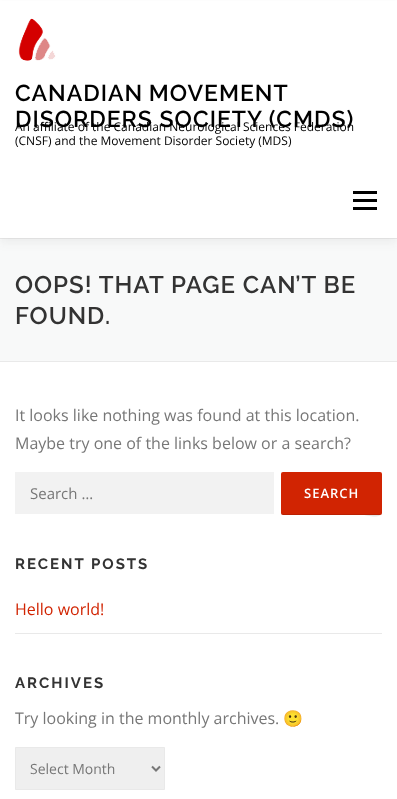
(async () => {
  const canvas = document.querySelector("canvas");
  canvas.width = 397;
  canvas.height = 799;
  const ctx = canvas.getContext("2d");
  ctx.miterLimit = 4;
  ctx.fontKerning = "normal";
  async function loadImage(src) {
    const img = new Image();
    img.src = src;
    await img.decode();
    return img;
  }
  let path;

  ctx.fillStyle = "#ffffff";
  ctx.fillRect(0, 0, 397, 799);
  ctx.fillStyle = "#f8f9f9";
  ctx.fillRect(0, 239, 397, 122);
  ctx.fillStyle = "#e9e9e9";
  ctx.fillRect(0, 238, 397, 1);
  ctx.fillStyle = "rgba(50, 50, 50, 0.06)";
  ctx.filter = "blur(5px)";
  ctx.beginPath();
  ctx.rect(0, 5, 397, 238);
  ctx.fill();
  ctx.filter = "none";
  ctx.fillStyle = "#ffffff";
  ctx.fillRect(0, 1, 397, 237);
  ctx.drawImage(await loadImage("img/1.png"), 18, 18, 38, 43);
  for (const [x, y, w, h, color] of [
    [353, 199, 24, 3, "#000000"],
    [353, 191, 24, 3, "#000000"],
    [353, 207, 24, 3, "#000000"],
    [0, 361, 397, 1, "#e9e9e9"],
    [15, 472, 259, 42, "#f2f2f2"],
  ]) {
    ctx.fillStyle = color;
    ctx.fillRect(x, y, w, h);
  }
  ctx.fillStyle = "#d12402";
  ctx.beginPath();
  ctx.roundRect(281, 472, 101, 43, 2);
  ctx.fill();
  ctx.fillStyle = "rgba(0, 0, 0, 0.1)";
  path = new Path2D("M281 512C281 513 281 515 283 515H364C365 515 382 520 382 512C382 513 381 514 380 514H283C282 514 281 513 281 512Z");
  ctx.fill(path);
  ctx.fillStyle = "#e9e9e9";
  ctx.fillRect(15, 633, 367, 1);
  ctx.fillStyle = "#efefef";
  ctx.beginPath();
  ctx.rect(15.5, 747.5, 149, 42);
  ctx.fill();
  ctx.strokeStyle = "#e9e9e9";
  ctx.stroke();
  path = new Path2D("M152 766.5L156 770.5L160 766.5");
  ctx.strokeStyle = "#777777";
  ctx.lineWidth = 2;
  ctx.stroke(path);
  ctx.letterSpacing = "1px";
  ctx.wordSpacing = "-1px";
  ctx.font = "600 23px Raleway";
  ctx.fillStyle = "#000000";
  ctx.fillText("CANADIAN MOVEMENT", 15, 101);
  ctx.wordSpacing = "0px";
  ctx.fillText("DISORDERS SOCIETY (CMDS)", 15, 127);
  ctx.letterSpacing = "0px";
  ctx.font = "12px Open Sans";
  ctx.fillText("An affiliate of the Canadian Neurological Sciences Federation", 15, 131);
  ctx.fillText("(CNSF) and the Movement Disorder Society (MDS)", 15, 145);
  ctx.letterSpacing = "1px";
  ctx.font = "600 24px Raleway";
  ctx.fillStyle = "#333333";
  ctx.fillText("OOPS! THAT PAGE CAN’T BE", 15, 293);
  ctx.fillText("FOUND.", 15, 324);
  ctx.letterSpacing = "0px";
  ctx.font = "16px Open Sans";
  ctx.fillStyle = "#777777";
  ctx.fillText("It looks like nothing was found at this location.", 15, 421);
  ctx.fillText("Maybe try one of the links below or a search?", 15, 449);
  ctx.font = "15px Open Sans";
  ctx.fillText("Search …", 30, 499);
  ctx.letterSpacing = "1px";
  ctx.font = "600 13px Open Sans";
  ctx.fillStyle = "#ffffff";
  ctx.fillText("SEARCH", 304, 498);
  ctx.letterSpacing = "2px";
  ctx.font = "bold 15px Raleway";
  ctx.fillStyle = "#333333";
  ctx.fillText("RECENT POSTS", 15, 569);
  ctx.letterSpacing = "0px";
  ctx.font = "16px Open Sans";
  ctx.fillStyle = "#d12402";
  ctx.fillText("Hello world!", 15, 615);
  ctx.letterSpacing = "2px";
  ctx.font = "bold 15px Raleway";
  ctx.fillStyle = "#333333";
  ctx.fillText("ARCHIVES", 15, 688);
  ctx.letterSpacing = "0px";
  ctx.font = "16px Open Sans";
  ctx.fillStyle = "#777777";
  ctx.fillText("Try looking in the monthly archives.", 15, 724);
  ctx.font = "16px Noto Color Emoji";
  ctx.fillText("🙂", 283, 724);
  ctx.font = "14px Open Sans";
  ctx.fillText("Select Month", 30, 774);
})();
